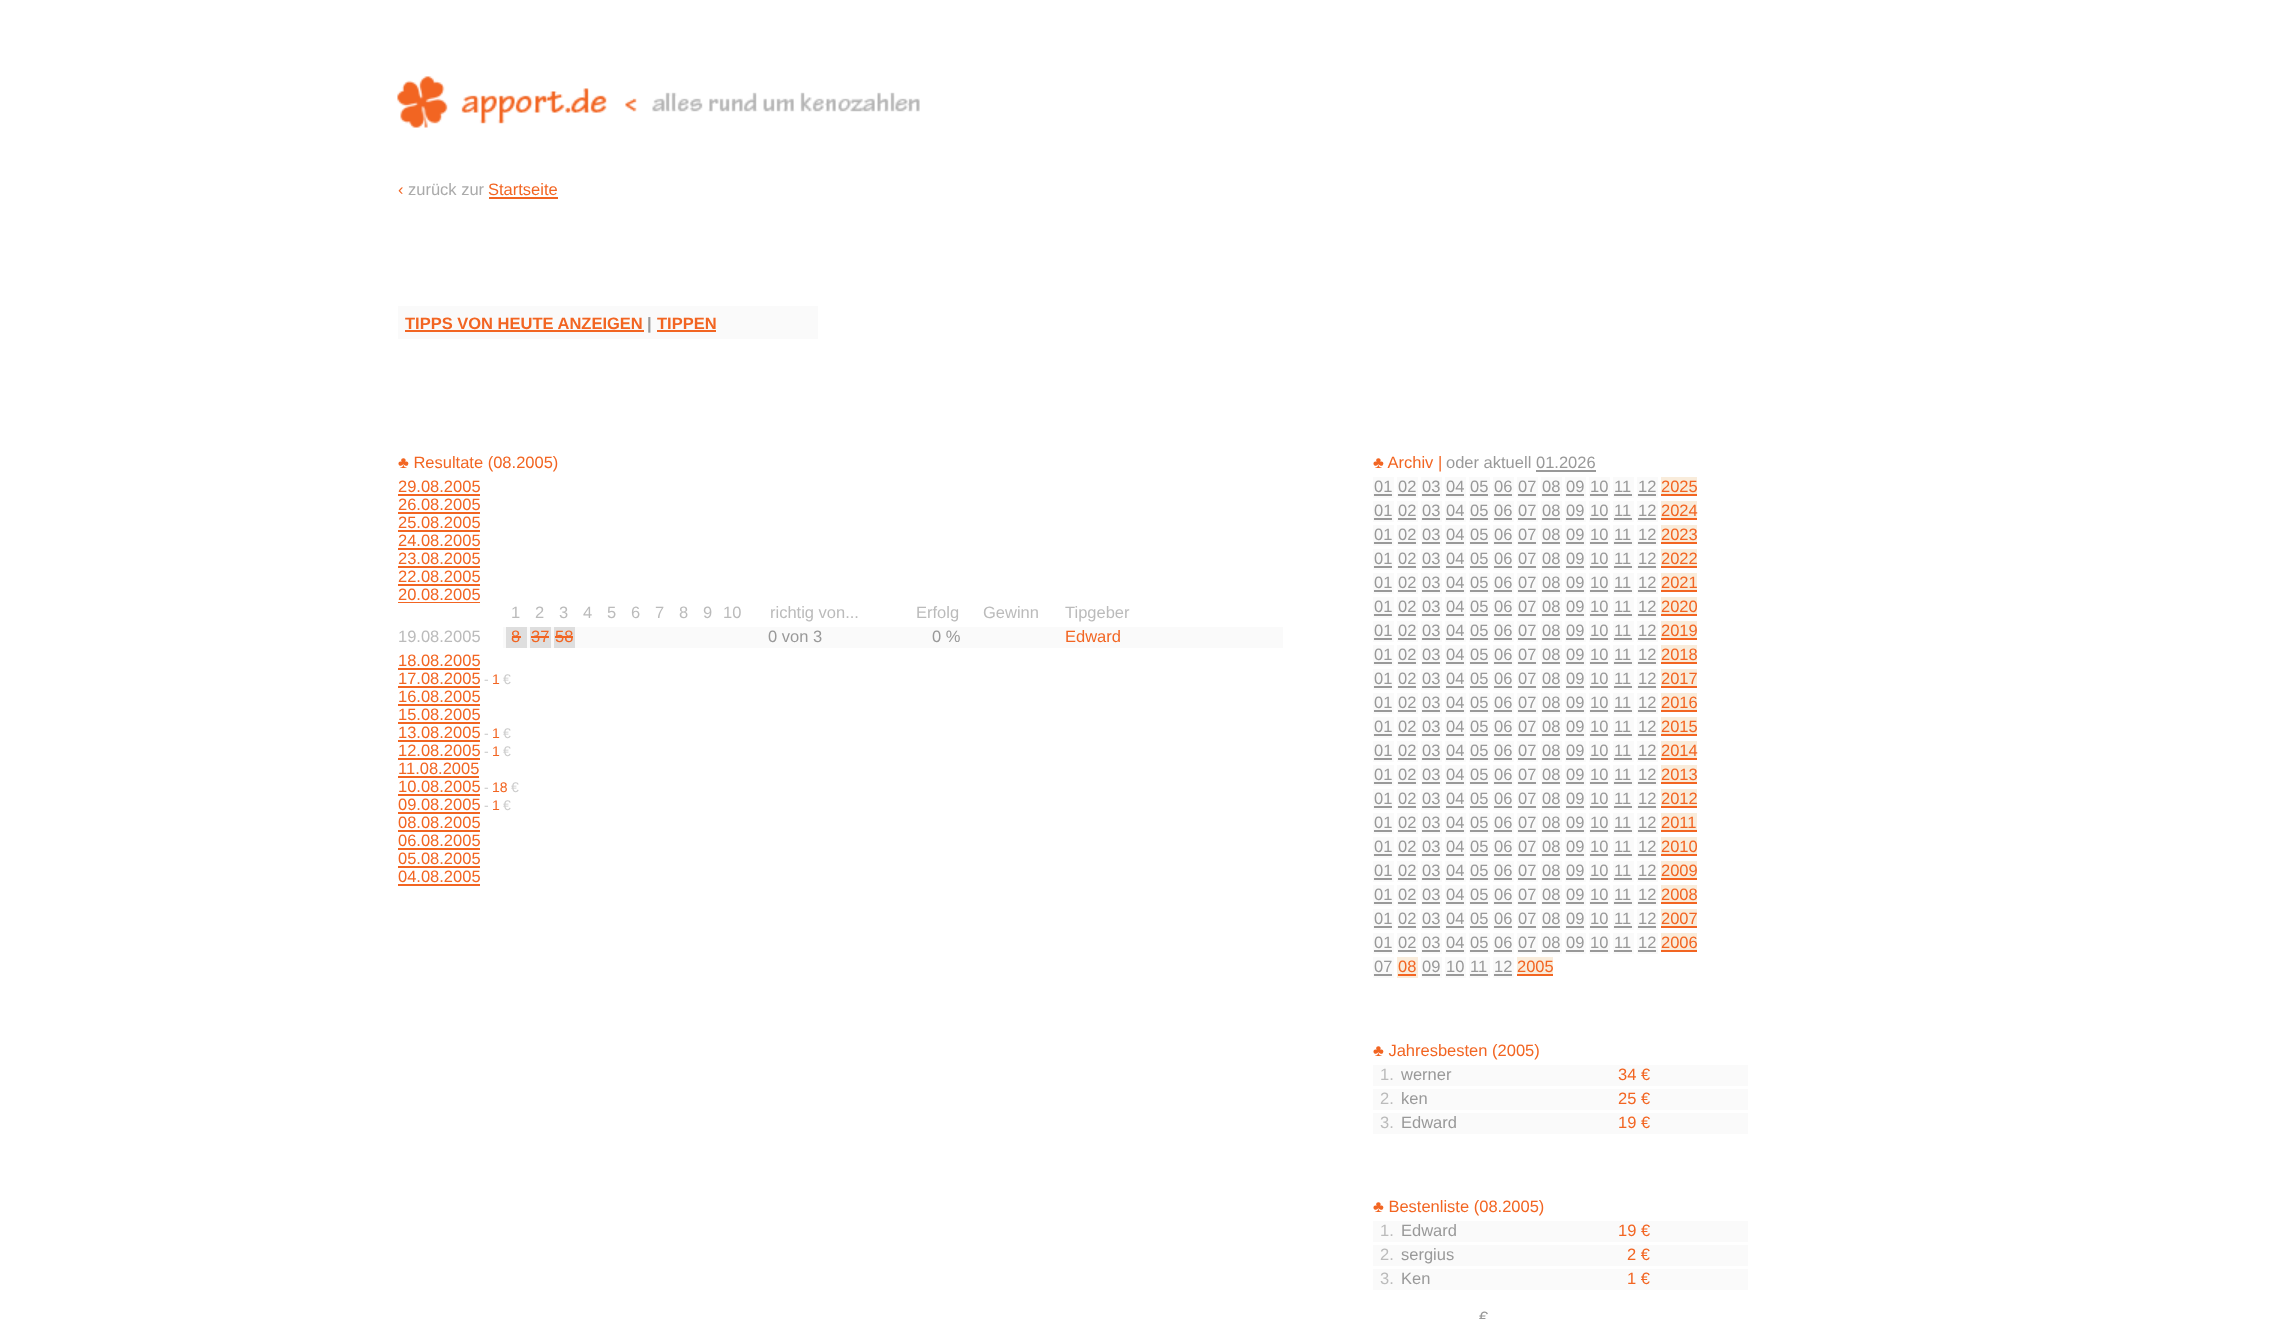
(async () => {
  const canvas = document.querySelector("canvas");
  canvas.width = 2286;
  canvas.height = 1319;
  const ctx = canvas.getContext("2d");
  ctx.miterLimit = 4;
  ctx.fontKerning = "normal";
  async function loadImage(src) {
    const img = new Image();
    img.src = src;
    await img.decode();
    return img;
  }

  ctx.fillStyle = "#ffffff";
  ctx.fillRect(0, 0, 2286, 1319);
  ctx.drawImage(await loadImage("img/1.png"), 397, 76, 523, 52);
  for (const [x, y, w, h, color] of [
    [489, 197, 69, 2, "#f26522"],
    [398, 306, 420, 33, "#fafafa"],
    [405, 330, 239, 2, "#f26522"],
    [657, 330, 59, 2, "#f26522"],
    [398, 494, 82, 2, "#f26522"],
    [398, 512, 82, 2, "#f26522"],
    [398, 530, 82, 2, "#f26522"],
    [398, 548, 82, 2, "#f26522"],
    [398, 566, 82, 2, "#f26522"],
    [398, 584, 82, 2, "#f26522"],
    [398, 602, 82, 1, "#f26522"],
    [503, 627, 780, 21, "#fafafa"],
    [506, 627, 21, 21, "#dedede"],
    [512, 636, 9, 2, "#f26522"],
    [530, 627, 21, 21, "#dedede"],
    [531, 636, 18, 2, "#f26522"],
    [554, 627, 21, 21, "#dedede"],
    [555, 636, 18, 2, "#f26522"],
    [398, 668, 82, 2, "#f26522"],
    [398, 686, 82, 2, "#f26522"],
    [398, 704, 82, 2, "#f26522"],
    [398, 722, 82, 2, "#f26522"],
    [398, 740, 82, 2, "#f26522"],
    [398, 758, 82, 2, "#f26522"],
    [398, 776, 81, 2, "#f26522"],
    [398, 794, 82, 2, "#f26522"],
    [398, 812, 82, 2, "#f26522"],
    [398, 830, 82, 2, "#f26522"],
    [398, 848, 82, 2, "#f26522"],
    [398, 866, 82, 2, "#f26522"],
    [398, 884, 82, 2, "#f26522"],
    [1536, 470, 60, 2, "#999999"],
    [1373, 477, 21, 21, "#fafafa"],
    [1374, 494, 18, 2, "#999999"],
    [1397, 477, 21, 21, "#fafafa"],
    [1398, 494, 18, 2, "#999999"],
    [1421, 477, 21, 21, "#fafafa"],
    [1422, 494, 18, 2, "#999999"],
    [1445, 477, 21, 21, "#fafafa"],
    [1446, 494, 18, 2, "#999999"],
    [1469, 477, 21, 21, "#fafafa"],
    [1470, 494, 18, 2, "#999999"],
    [1493, 477, 21, 21, "#fafafa"],
    [1494, 494, 18, 2, "#999999"],
    [1517, 477, 21, 21, "#fafafa"],
    [1518, 494, 18, 2, "#999999"],
    [1541, 477, 21, 21, "#fafafa"],
    [1542, 494, 18, 2, "#999999"],
    [1565, 477, 21, 21, "#fafafa"],
    [1566, 494, 18, 2, "#999999"],
    [1589, 477, 21, 21, "#fafafa"],
    [1590, 494, 18, 2, "#999999"],
    [1613, 477, 21, 21, "#fafafa"],
    [1614, 494, 18, 2, "#999999"],
    [1637, 477, 21, 21, "#fafafa"],
    [1638, 494, 18, 2, "#999999"],
    [1661, 477, 36, 17, "#f9ecdb"],
    [1661, 494, 36, 2, "#f26522"],
    [1373, 501, 21, 21, "#fafafa"],
    [1374, 518, 18, 2, "#999999"],
    [1397, 501, 21, 21, "#fafafa"],
    [1398, 518, 18, 2, "#999999"],
    [1421, 501, 21, 21, "#fafafa"],
    [1422, 518, 18, 2, "#999999"],
    [1445, 501, 21, 21, "#fafafa"],
    [1446, 518, 18, 2, "#999999"],
    [1469, 501, 21, 21, "#fafafa"],
    [1470, 518, 18, 2, "#999999"],
    [1493, 501, 21, 21, "#fafafa"],
    [1494, 518, 18, 2, "#999999"],
    [1517, 501, 21, 21, "#fafafa"],
    [1518, 518, 18, 2, "#999999"],
    [1541, 501, 21, 21, "#fafafa"],
    [1542, 518, 18, 2, "#999999"],
    [1565, 501, 21, 21, "#fafafa"],
    [1566, 518, 18, 2, "#999999"],
    [1589, 501, 21, 21, "#fafafa"],
    [1590, 518, 18, 2, "#999999"],
    [1613, 501, 21, 21, "#fafafa"],
    [1614, 518, 18, 2, "#999999"],
    [1637, 501, 21, 21, "#fafafa"],
    [1638, 518, 18, 2, "#999999"],
    [1661, 501, 36, 17, "#f9ecdb"],
    [1661, 518, 36, 2, "#f26522"],
    [1373, 525, 21, 21, "#fafafa"],
    [1374, 542, 18, 2, "#999999"],
    [1397, 525, 21, 21, "#fafafa"],
    [1398, 542, 18, 2, "#999999"],
    [1421, 525, 21, 21, "#fafafa"],
    [1422, 542, 18, 2, "#999999"],
    [1445, 525, 21, 21, "#fafafa"],
    [1446, 542, 18, 2, "#999999"],
    [1469, 525, 21, 21, "#fafafa"],
    [1470, 542, 18, 2, "#999999"],
    [1493, 525, 21, 21, "#fafafa"],
    [1494, 542, 18, 2, "#999999"],
    [1517, 525, 21, 21, "#fafafa"],
    [1518, 542, 18, 2, "#999999"],
    [1541, 525, 21, 21, "#fafafa"],
    [1542, 542, 18, 2, "#999999"],
    [1565, 525, 21, 21, "#fafafa"],
    [1566, 542, 18, 2, "#999999"],
    [1589, 525, 21, 21, "#fafafa"],
    [1590, 542, 18, 2, "#999999"],
    [1613, 525, 21, 21, "#fafafa"],
    [1614, 542, 18, 2, "#999999"],
    [1637, 525, 21, 21, "#fafafa"],
    [1638, 542, 18, 2, "#999999"],
    [1661, 525, 36, 17, "#f9ecdb"],
    [1661, 542, 36, 2, "#f26522"],
    [1373, 549, 21, 21, "#fafafa"],
    [1374, 566, 18, 2, "#999999"],
    [1397, 549, 21, 21, "#fafafa"],
    [1398, 566, 18, 2, "#999999"],
    [1421, 549, 21, 21, "#fafafa"],
    [1422, 566, 18, 2, "#999999"],
    [1445, 549, 21, 21, "#fafafa"],
    [1446, 566, 18, 2, "#999999"],
    [1469, 549, 21, 21, "#fafafa"],
    [1470, 566, 18, 2, "#999999"],
    [1493, 549, 21, 21, "#fafafa"],
    [1494, 566, 18, 2, "#999999"],
    [1517, 549, 21, 21, "#fafafa"],
    [1518, 566, 18, 2, "#999999"],
    [1541, 549, 21, 21, "#fafafa"],
    [1542, 566, 18, 2, "#999999"],
    [1565, 549, 21, 21, "#fafafa"],
    [1566, 566, 18, 2, "#999999"],
    [1589, 549, 21, 21, "#fafafa"],
    [1590, 566, 18, 2, "#999999"],
    [1613, 549, 21, 21, "#fafafa"],
    [1614, 566, 18, 2, "#999999"],
    [1637, 549, 21, 21, "#fafafa"],
    [1638, 566, 18, 2, "#999999"],
    [1661, 549, 36, 17, "#f9ecdb"],
    [1661, 566, 36, 2, "#f26522"],
    [1373, 573, 21, 21, "#fafafa"],
    [1374, 590, 18, 2, "#999999"],
    [1397, 573, 21, 21, "#fafafa"],
    [1398, 590, 18, 2, "#999999"],
    [1421, 573, 21, 21, "#fafafa"],
    [1422, 590, 18, 2, "#999999"],
    [1445, 573, 21, 21, "#fafafa"],
    [1446, 590, 18, 2, "#999999"],
    [1469, 573, 21, 21, "#fafafa"],
    [1470, 590, 18, 2, "#999999"],
    [1493, 573, 21, 21, "#fafafa"],
    [1494, 590, 18, 2, "#999999"],
    [1517, 573, 21, 21, "#fafafa"],
    [1518, 590, 18, 2, "#999999"],
    [1541, 573, 21, 21, "#fafafa"],
    [1542, 590, 18, 2, "#999999"],
    [1565, 573, 21, 21, "#fafafa"],
    [1566, 590, 18, 2, "#999999"],
    [1589, 573, 21, 21, "#fafafa"],
    [1590, 590, 18, 2, "#999999"],
    [1613, 573, 21, 21, "#fafafa"],
    [1614, 590, 18, 2, "#999999"],
    [1637, 573, 21, 21, "#fafafa"],
    [1638, 590, 18, 2, "#999999"],
    [1661, 573, 36, 17, "#f9ecdb"],
    [1661, 590, 36, 2, "#f26522"],
    [1373, 597, 21, 21, "#fafafa"],
    [1374, 614, 18, 2, "#999999"],
    [1397, 597, 21, 21, "#fafafa"],
    [1398, 614, 18, 2, "#999999"],
    [1421, 597, 21, 21, "#fafafa"],
    [1422, 614, 18, 2, "#999999"],
    [1445, 597, 21, 21, "#fafafa"],
    [1446, 614, 18, 2, "#999999"],
    [1469, 597, 21, 21, "#fafafa"],
    [1470, 614, 18, 2, "#999999"],
    [1493, 597, 21, 21, "#fafafa"],
    [1494, 614, 18, 2, "#999999"],
    [1517, 597, 21, 21, "#fafafa"],
    [1518, 614, 18, 2, "#999999"],
    [1541, 597, 21, 21, "#fafafa"],
    [1542, 614, 18, 2, "#999999"],
    [1565, 597, 21, 21, "#fafafa"],
    [1566, 614, 18, 2, "#999999"],
    [1589, 597, 21, 21, "#fafafa"],
    [1590, 614, 18, 2, "#999999"],
    [1613, 597, 21, 21, "#fafafa"],
    [1614, 614, 18, 2, "#999999"],
    [1637, 597, 21, 21, "#fafafa"],
    [1638, 614, 18, 2, "#999999"],
    [1661, 597, 36, 17, "#f9ecdb"],
    [1661, 614, 36, 2, "#f26522"],
    [1373, 621, 21, 21, "#fafafa"],
    [1374, 638, 18, 2, "#999999"],
    [1397, 621, 21, 21, "#fafafa"],
    [1398, 638, 18, 2, "#999999"],
    [1421, 621, 21, 21, "#fafafa"],
    [1422, 638, 18, 2, "#999999"],
    [1445, 621, 21, 21, "#fafafa"],
    [1446, 638, 18, 2, "#999999"],
    [1469, 621, 21, 21, "#fafafa"],
    [1470, 638, 18, 2, "#999999"],
    [1493, 621, 21, 21, "#fafafa"],
    [1494, 638, 18, 2, "#999999"],
    [1517, 621, 21, 21, "#fafafa"],
    [1518, 638, 18, 2, "#999999"],
    [1541, 621, 21, 21, "#fafafa"],
    [1542, 638, 18, 2, "#999999"],
    [1565, 621, 21, 21, "#fafafa"],
    [1566, 638, 18, 2, "#999999"],
    [1589, 621, 21, 21, "#fafafa"],
    [1590, 638, 18, 2, "#999999"],
    [1613, 621, 21, 21, "#fafafa"],
    [1614, 638, 18, 2, "#999999"],
    [1637, 621, 21, 21, "#fafafa"],
    [1638, 638, 18, 2, "#999999"],
    [1661, 621, 36, 17, "#f9ecdb"],
    [1661, 638, 36, 2, "#f26522"],
    [1373, 645, 21, 21, "#fafafa"],
    [1374, 662, 18, 2, "#999999"],
    [1397, 645, 21, 21, "#fafafa"],
    [1398, 662, 18, 2, "#999999"],
    [1421, 645, 21, 21, "#fafafa"],
    [1422, 662, 18, 2, "#999999"],
    [1445, 645, 21, 21, "#fafafa"],
    [1446, 662, 18, 2, "#999999"],
    [1469, 645, 21, 21, "#fafafa"],
    [1470, 662, 18, 2, "#999999"],
    [1493, 645, 21, 21, "#fafafa"],
    [1494, 662, 18, 2, "#999999"],
    [1517, 645, 21, 21, "#fafafa"],
    [1518, 662, 18, 2, "#999999"],
    [1541, 645, 21, 21, "#fafafa"],
    [1542, 662, 18, 2, "#999999"],
    [1565, 645, 21, 21, "#fafafa"],
    [1566, 662, 18, 2, "#999999"],
    [1589, 645, 21, 21, "#fafafa"],
    [1590, 662, 18, 2, "#999999"],
    [1613, 645, 21, 21, "#fafafa"],
    [1614, 662, 18, 2, "#999999"],
    [1637, 645, 21, 21, "#fafafa"],
    [1638, 662, 18, 2, "#999999"],
    [1661, 645, 36, 17, "#f9ecdb"],
    [1661, 662, 36, 2, "#f26522"],
    [1373, 669, 21, 21, "#fafafa"],
    [1374, 686, 18, 2, "#999999"],
    [1397, 669, 21, 21, "#fafafa"],
    [1398, 686, 18, 2, "#999999"],
    [1421, 669, 21, 21, "#fafafa"],
    [1422, 686, 18, 2, "#999999"],
    [1445, 669, 21, 21, "#fafafa"],
    [1446, 686, 18, 2, "#999999"],
    [1469, 669, 21, 21, "#fafafa"],
    [1470, 686, 18, 2, "#999999"],
    [1493, 669, 21, 21, "#fafafa"],
    [1494, 686, 18, 2, "#999999"],
    [1517, 669, 21, 21, "#fafafa"],
    [1518, 686, 18, 2, "#999999"],
    [1541, 669, 21, 21, "#fafafa"],
    [1542, 686, 18, 2, "#999999"],
    [1565, 669, 21, 21, "#fafafa"],
    [1566, 686, 18, 2, "#999999"],
    [1589, 669, 21, 21, "#fafafa"],
    [1590, 686, 18, 2, "#999999"],
    [1613, 669, 21, 21, "#fafafa"],
    [1614, 686, 18, 2, "#999999"],
    [1637, 669, 21, 21, "#fafafa"],
    [1638, 686, 18, 2, "#999999"],
    [1661, 669, 36, 17, "#f9ecdb"],
    [1661, 686, 36, 2, "#f26522"],
    [1373, 693, 21, 21, "#fafafa"],
    [1374, 710, 18, 2, "#999999"],
    [1397, 693, 21, 21, "#fafafa"],
    [1398, 710, 18, 2, "#999999"],
    [1421, 693, 21, 21, "#fafafa"],
    [1422, 710, 18, 2, "#999999"],
    [1445, 693, 21, 21, "#fafafa"],
    [1446, 710, 18, 2, "#999999"],
    [1469, 693, 21, 21, "#fafafa"],
    [1470, 710, 18, 2, "#999999"],
    [1493, 693, 21, 21, "#fafafa"],
    [1494, 710, 18, 2, "#999999"],
    [1517, 693, 21, 21, "#fafafa"],
    [1518, 710, 18, 2, "#999999"],
    [1541, 693, 21, 21, "#fafafa"],
    [1542, 710, 18, 2, "#999999"],
    [1565, 693, 21, 21, "#fafafa"],
    [1566, 710, 18, 2, "#999999"],
    [1589, 693, 21, 21, "#fafafa"],
    [1590, 710, 18, 2, "#999999"],
    [1613, 693, 21, 21, "#fafafa"],
    [1614, 710, 18, 2, "#999999"],
    [1637, 693, 21, 21, "#fafafa"],
    [1638, 710, 18, 2, "#999999"],
    [1661, 693, 36, 17, "#f9ecdb"],
    [1661, 710, 36, 2, "#f26522"],
    [1373, 717, 21, 21, "#fafafa"],
    [1374, 734, 18, 2, "#999999"],
    [1397, 717, 21, 21, "#fafafa"],
    [1398, 734, 18, 2, "#999999"],
    [1421, 717, 21, 21, "#fafafa"],
    [1422, 734, 18, 2, "#999999"],
    [1445, 717, 21, 21, "#fafafa"],
    [1446, 734, 18, 2, "#999999"],
    [1469, 717, 21, 21, "#fafafa"],
    [1470, 734, 18, 2, "#999999"],
    [1493, 717, 21, 21, "#fafafa"],
    [1494, 734, 18, 2, "#999999"],
    [1517, 717, 21, 21, "#fafafa"],
    [1518, 734, 18, 2, "#999999"],
    [1541, 717, 21, 21, "#fafafa"],
    [1542, 734, 18, 2, "#999999"],
    [1565, 717, 21, 21, "#fafafa"],
    [1566, 734, 18, 2, "#999999"],
    [1589, 717, 21, 21, "#fafafa"],
    [1590, 734, 18, 2, "#999999"],
    [1613, 717, 21, 21, "#fafafa"],
    [1614, 734, 18, 2, "#999999"],
    [1637, 717, 21, 21, "#fafafa"],
    [1638, 734, 18, 2, "#999999"],
    [1661, 717, 36, 17, "#f9ecdb"],
    [1661, 734, 36, 2, "#f26522"],
    [1373, 741, 21, 21, "#fafafa"],
    [1374, 758, 18, 2, "#999999"],
    [1397, 741, 21, 21, "#fafafa"],
    [1398, 758, 18, 2, "#999999"],
    [1421, 741, 21, 21, "#fafafa"],
    [1422, 758, 18, 2, "#999999"],
    [1445, 741, 21, 21, "#fafafa"],
    [1446, 758, 18, 2, "#999999"],
    [1469, 741, 21, 21, "#fafafa"],
    [1470, 758, 18, 2, "#999999"],
    [1493, 741, 21, 21, "#fafafa"],
    [1494, 758, 18, 2, "#999999"],
    [1517, 741, 21, 21, "#fafafa"],
    [1518, 758, 18, 2, "#999999"],
    [1541, 741, 21, 21, "#fafafa"],
    [1542, 758, 18, 2, "#999999"],
    [1565, 741, 21, 21, "#fafafa"],
    [1566, 758, 18, 2, "#999999"],
    [1589, 741, 21, 21, "#fafafa"],
    [1590, 758, 18, 2, "#999999"],
    [1613, 741, 21, 21, "#fafafa"],
    [1614, 758, 18, 2, "#999999"],
    [1637, 741, 21, 21, "#fafafa"],
    [1638, 758, 18, 2, "#999999"],
    [1661, 741, 36, 17, "#f9ecdb"],
    [1661, 758, 36, 2, "#f26522"],
    [1373, 765, 21, 21, "#fafafa"],
    [1374, 782, 18, 2, "#999999"],
    [1397, 765, 21, 21, "#fafafa"],
    [1398, 782, 18, 2, "#999999"],
    [1421, 765, 21, 21, "#fafafa"],
    [1422, 782, 18, 2, "#999999"],
    [1445, 765, 21, 21, "#fafafa"],
    [1446, 782, 18, 2, "#999999"],
    [1469, 765, 21, 21, "#fafafa"],
    [1470, 782, 18, 2, "#999999"],
    [1493, 765, 21, 21, "#fafafa"],
    [1494, 782, 18, 2, "#999999"],
    [1517, 765, 21, 21, "#fafafa"],
    [1518, 782, 18, 2, "#999999"],
    [1541, 765, 21, 21, "#fafafa"],
    [1542, 782, 18, 2, "#999999"],
    [1565, 765, 21, 21, "#fafafa"],
    [1566, 782, 18, 2, "#999999"],
    [1589, 765, 21, 21, "#fafafa"],
    [1590, 782, 18, 2, "#999999"],
    [1613, 765, 21, 21, "#fafafa"],
    [1614, 782, 18, 2, "#999999"],
    [1637, 765, 21, 21, "#fafafa"],
    [1638, 782, 18, 2, "#999999"],
    [1661, 765, 36, 17, "#f9ecdb"],
    [1661, 782, 36, 2, "#f26522"],
    [1373, 789, 21, 21, "#fafafa"],
    [1374, 806, 18, 2, "#999999"],
    [1397, 789, 21, 21, "#fafafa"],
    [1398, 806, 18, 2, "#999999"],
    [1421, 789, 21, 21, "#fafafa"],
    [1422, 806, 18, 2, "#999999"],
    [1445, 789, 21, 21, "#fafafa"],
    [1446, 806, 18, 2, "#999999"],
    [1469, 789, 21, 21, "#fafafa"],
    [1470, 806, 18, 2, "#999999"],
    [1493, 789, 21, 21, "#fafafa"],
    [1494, 806, 18, 2, "#999999"],
    [1517, 789, 21, 21, "#fafafa"],
    [1518, 806, 18, 2, "#999999"],
    [1541, 789, 21, 21, "#fafafa"],
    [1542, 806, 18, 2, "#999999"],
    [1565, 789, 21, 21, "#fafafa"],
    [1566, 806, 18, 2, "#999999"],
    [1589, 789, 21, 21, "#fafafa"],
    [1590, 806, 18, 2, "#999999"],
    [1613, 789, 21, 21, "#fafafa"],
    [1614, 806, 18, 2, "#999999"],
    [1637, 789, 21, 21, "#fafafa"],
    [1638, 806, 18, 2, "#999999"],
    [1661, 789, 36, 17, "#f9ecdb"],
    [1661, 806, 36, 2, "#f26522"],
    [1373, 813, 21, 21, "#fafafa"],
    [1374, 830, 18, 2, "#999999"],
    [1397, 813, 21, 21, "#fafafa"],
    [1398, 830, 18, 2, "#999999"],
    [1421, 813, 21, 21, "#fafafa"],
    [1422, 830, 18, 2, "#999999"],
    [1445, 813, 21, 21, "#fafafa"],
    [1446, 830, 18, 2, "#999999"],
    [1469, 813, 21, 21, "#fafafa"],
    [1470, 830, 18, 2, "#999999"],
    [1493, 813, 21, 21, "#fafafa"],
    [1494, 830, 18, 2, "#999999"],
    [1517, 813, 21, 21, "#fafafa"],
    [1518, 830, 18, 2, "#999999"],
    [1541, 813, 21, 21, "#fafafa"],
    [1542, 830, 18, 2, "#999999"],
    [1565, 813, 21, 21, "#fafafa"],
    [1566, 830, 18, 2, "#999999"],
    [1589, 813, 21, 21, "#fafafa"],
    [1590, 830, 18, 2, "#999999"],
    [1613, 813, 21, 21, "#fafafa"],
    [1614, 830, 18, 2, "#999999"],
    [1637, 813, 21, 21, "#fafafa"],
    [1638, 830, 18, 2, "#999999"],
    [1661, 813, 36, 17, "#f9ecdb"],
    [1661, 830, 36, 2, "#f26522"],
    [1373, 837, 21, 21, "#fafafa"],
    [1374, 854, 18, 2, "#999999"],
    [1397, 837, 21, 21, "#fafafa"],
    [1398, 854, 18, 2, "#999999"],
    [1421, 837, 21, 21, "#fafafa"],
    [1422, 854, 18, 2, "#999999"],
    [1445, 837, 21, 21, "#fafafa"],
    [1446, 854, 18, 2, "#999999"],
    [1469, 837, 21, 21, "#fafafa"],
    [1470, 854, 18, 2, "#999999"],
    [1493, 837, 21, 21, "#fafafa"],
    [1494, 854, 18, 2, "#999999"],
    [1517, 837, 21, 21, "#fafafa"],
    [1518, 854, 18, 2, "#999999"],
    [1541, 837, 21, 21, "#fafafa"],
    [1542, 854, 18, 2, "#999999"],
    [1565, 837, 21, 21, "#fafafa"],
    [1566, 854, 18, 2, "#999999"],
    [1589, 837, 21, 21, "#fafafa"],
    [1590, 854, 18, 2, "#999999"],
    [1613, 837, 21, 21, "#fafafa"],
    [1614, 854, 18, 2, "#999999"],
    [1637, 837, 21, 21, "#fafafa"],
    [1638, 854, 18, 2, "#999999"],
    [1661, 837, 36, 17, "#f9ecdb"],
    [1661, 854, 36, 2, "#f26522"],
    [1373, 861, 21, 21, "#fafafa"],
    [1374, 878, 18, 2, "#999999"],
    [1397, 861, 21, 21, "#fafafa"],
    [1398, 878, 18, 2, "#999999"],
    [1421, 861, 21, 21, "#fafafa"],
    [1422, 878, 18, 2, "#999999"],
    [1445, 861, 21, 21, "#fafafa"],
    [1446, 878, 18, 2, "#999999"],
    [1469, 861, 21, 21, "#fafafa"],
    [1470, 878, 18, 2, "#999999"],
    [1493, 861, 21, 21, "#fafafa"],
    [1494, 878, 18, 2, "#999999"],
    [1517, 861, 21, 21, "#fafafa"],
    [1518, 878, 18, 2, "#999999"],
    [1541, 861, 21, 21, "#fafafa"],
    [1542, 878, 18, 2, "#999999"],
    [1565, 861, 21, 21, "#fafafa"],
    [1566, 878, 18, 2, "#999999"],
    [1589, 861, 21, 21, "#fafafa"],
    [1590, 878, 18, 2, "#999999"],
    [1613, 861, 21, 21, "#fafafa"],
    [1614, 878, 18, 2, "#999999"],
    [1637, 861, 21, 21, "#fafafa"],
    [1638, 878, 18, 2, "#999999"],
    [1661, 861, 36, 17, "#f9ecdb"],
    [1661, 878, 36, 2, "#f26522"],
    [1373, 885, 21, 21, "#fafafa"],
    [1374, 902, 18, 2, "#999999"],
    [1397, 885, 21, 21, "#fafafa"],
    [1398, 902, 18, 2, "#999999"],
    [1421, 885, 21, 21, "#fafafa"],
    [1422, 902, 18, 2, "#999999"],
    [1445, 885, 21, 21, "#fafafa"],
    [1446, 902, 18, 2, "#999999"],
    [1469, 885, 21, 21, "#fafafa"],
    [1470, 902, 18, 2, "#999999"],
    [1493, 885, 21, 21, "#fafafa"],
    [1494, 902, 18, 2, "#999999"],
    [1517, 885, 21, 21, "#fafafa"],
    [1518, 902, 18, 2, "#999999"],
    [1541, 885, 21, 21, "#fafafa"],
    [1542, 902, 18, 2, "#999999"],
    [1565, 885, 21, 21, "#fafafa"],
    [1566, 902, 18, 2, "#999999"],
    [1589, 885, 21, 21, "#fafafa"],
    [1590, 902, 18, 2, "#999999"],
    [1613, 885, 21, 21, "#fafafa"],
    [1614, 902, 18, 2, "#999999"],
    [1637, 885, 21, 21, "#fafafa"],
    [1638, 902, 18, 2, "#999999"],
    [1661, 885, 36, 17, "#f9ecdb"],
    [1661, 902, 36, 2, "#f26522"],
    [1373, 909, 21, 21, "#fafafa"],
    [1374, 926, 18, 2, "#999999"],
    [1397, 909, 21, 21, "#fafafa"],
    [1398, 926, 18, 2, "#999999"],
    [1421, 909, 21, 21, "#fafafa"],
    [1422, 926, 18, 2, "#999999"],
    [1445, 909, 21, 21, "#fafafa"],
    [1446, 926, 18, 2, "#999999"],
    [1469, 909, 21, 21, "#fafafa"],
    [1470, 926, 18, 2, "#999999"],
    [1493, 909, 21, 21, "#fafafa"],
    [1494, 926, 18, 2, "#999999"],
    [1517, 909, 21, 21, "#fafafa"],
    [1518, 926, 18, 2, "#999999"],
    [1541, 909, 21, 21, "#fafafa"],
    [1542, 926, 18, 2, "#999999"],
    [1565, 909, 21, 21, "#fafafa"],
    [1566, 926, 18, 2, "#999999"],
    [1589, 909, 21, 21, "#fafafa"],
    [1590, 926, 18, 2, "#999999"],
    [1613, 909, 21, 21, "#fafafa"],
    [1614, 926, 18, 2, "#999999"],
    [1637, 909, 21, 21, "#fafafa"],
    [1638, 926, 18, 2, "#999999"],
    [1661, 909, 36, 17, "#f9ecdb"],
    [1661, 926, 36, 2, "#f26522"],
    [1373, 933, 21, 21, "#fafafa"],
    [1374, 950, 18, 2, "#999999"],
    [1397, 933, 21, 21, "#fafafa"],
    [1398, 950, 18, 2, "#999999"],
    [1421, 933, 21, 21, "#fafafa"],
    [1422, 950, 18, 2, "#999999"],
    [1445, 933, 21, 21, "#fafafa"],
    [1446, 950, 18, 2, "#999999"],
    [1469, 933, 21, 21, "#fafafa"],
    [1470, 950, 18, 2, "#999999"],
    [1493, 933, 21, 21, "#fafafa"],
    [1494, 950, 18, 2, "#999999"],
    [1517, 933, 21, 21, "#fafafa"],
    [1518, 950, 18, 2, "#999999"],
    [1541, 933, 21, 21, "#fafafa"],
    [1542, 950, 18, 2, "#999999"],
    [1565, 933, 21, 21, "#fafafa"],
    [1566, 950, 18, 2, "#999999"],
    [1589, 933, 21, 21, "#fafafa"],
    [1590, 950, 18, 2, "#999999"],
    [1613, 933, 21, 21, "#fafafa"],
    [1614, 950, 18, 2, "#999999"],
    [1637, 933, 21, 21, "#fafafa"],
    [1638, 950, 18, 2, "#999999"],
    [1661, 933, 36, 17, "#f9ecdb"],
    [1661, 950, 36, 2, "#f26522"],
    [1373, 957, 21, 21, "#fafafa"],
    [1374, 974, 18, 2, "#999999"],
    [1397, 957, 21, 21, "#f9ecdb"],
    [1398, 974, 18, 2, "#f26522"],
    [1421, 957, 21, 21, "#fafafa"],
    [1422, 974, 18, 2, "#999999"],
    [1445, 957, 21, 21, "#fafafa"],
    [1446, 974, 18, 2, "#999999"],
    [1469, 957, 21, 21, "#fafafa"],
    [1470, 974, 18, 2, "#999999"],
    [1493, 957, 21, 21, "#fafafa"],
    [1494, 974, 18, 2, "#999999"],
    [1517, 957, 36, 17, "#f9ecdb"],
    [1517, 974, 36, 2, "#f26522"],
    [1373, 1065, 375, 21, "#fafafa"],
    [1373, 1089, 375, 21, "#fafafa"],
    [1373, 1113, 375, 21, "#fafafa"],
    [1373, 1221, 375, 21, "#fafafa"],
    [1373, 1245, 375, 21, "#fafafa"],
    [1373, 1269, 375, 21, "#fafafa"],
  ]) {
    ctx.fillStyle = color;
    ctx.fillRect(x, y, w, h);
  }
  ctx.font = "16.5px Liberation Sans";
  ctx.fillStyle = "#f26522";
  ctx.fillText("‹", 398, 195);
  ctx.fillStyle = "#aaaaaa";
  ctx.fillText("zurück zur", 408, 195);
  ctx.fillStyle = "#f26522";
  ctx.fillText("Startseite", 488, 195);
  ctx.font = "bold 16.5px Liberation Sans";
  ctx.fillText("TIPPS VON HEUTE ANZEIGEN", 405, 329);
  ctx.fillStyle = "#999999";
  ctx.fillText("|", 647, 329);
  ctx.fillStyle = "#f26522";
  ctx.fillText("TIPPEN", 657, 329);
  ctx.font = "16.5px Liberation Sans";
  for (const [text, x, y] of [
    ["♣ Resultate (08.2005)", 398, 468],
    ["29.08.2005", 398, 492],
    ["26.08.2005", 398, 510],
    ["25.08.2005", 398, 528],
    ["24.08.2005", 398, 546],
    ["23.08.2005", 398, 564],
    ["22.08.2005", 398, 582],
    ["20.08.2005", 398, 600],
  ]) {
    ctx.fillText(text, x, y);
  }
  ctx.fillStyle = "#bbbbbb";
  for (const [text, x, y] of [
    ["1", 511, 618],
    ["2", 535, 618],
    ["3", 559, 618],
    ["4", 583, 618],
    ["5", 607, 618],
    ["6", 631, 618],
    ["7", 655, 618],
    ["8", 679, 618],
    ["9", 703, 618],
    ["10", 723, 618],
    ["richtig von...", 770, 618],
    ["Erfolg", 916, 618],
    ["Gewinn", 983, 618],
    ["Tipgeber", 1065, 618],
    ["19.08.2005", 398, 642],
  ]) {
    ctx.fillText(text, x, y);
  }
  ctx.fillStyle = "#f26522";
  for (const [text, x, y] of [
    ["8", 511, 642],
    ["37", 531, 642],
    ["58", 555, 642],
  ]) {
    ctx.fillText(text, x, y);
  }
  ctx.fillStyle = "#999999";
  ctx.fillText("0 von 3", 768, 642);
  ctx.fillText("0 %", 932, 642);
  ctx.fillStyle = "#f26522";
  for (const [text, x, y] of [
    ["Edward", 1065, 642],
    ["18.08.2005", 398, 666],
    ["17.08.2005", 398, 684],
  ]) {
    ctx.fillText(text, x, y);
  }
  ctx.font = "14px Liberation Sans";
  ctx.fillStyle = "#cccccc";
  ctx.fillText("-", 484, 684);
  ctx.fillStyle = "#f26522";
  ctx.fillText("1", 492, 684);
  ctx.fillStyle = "#cccccc";
  ctx.fillText("€", 503, 684);
  ctx.font = "16.5px Liberation Sans";
  ctx.fillStyle = "#f26522";
  for (const [text, x, y] of [
    ["16.08.2005", 398, 702],
    ["15.08.2005", 398, 720],
    ["13.08.2005", 398, 738],
  ]) {
    ctx.fillText(text, x, y);
  }
  ctx.font = "14px Liberation Sans";
  ctx.fillStyle = "#cccccc";
  ctx.fillText("-", 484, 738);
  ctx.fillStyle = "#f26522";
  ctx.fillText("1", 492, 738);
  ctx.fillStyle = "#cccccc";
  ctx.fillText("€", 503, 738);
  ctx.font = "16.5px Liberation Sans";
  ctx.fillStyle = "#f26522";
  ctx.fillText("12.08.2005", 398, 756);
  ctx.font = "14px Liberation Sans";
  ctx.fillStyle = "#cccccc";
  ctx.fillText("-", 484, 756);
  ctx.fillStyle = "#f26522";
  ctx.fillText("1", 492, 756);
  ctx.fillStyle = "#cccccc";
  ctx.fillText("€", 503, 756);
  ctx.font = "16.5px Liberation Sans";
  ctx.fillStyle = "#f26522";
  ctx.fillText("11.08.2005", 398, 774);
  ctx.fillText("10.08.2005", 398, 792);
  ctx.font = "14px Liberation Sans";
  ctx.fillStyle = "#cccccc";
  ctx.fillText("-", 484, 792);
  ctx.fillStyle = "#f26522";
  ctx.fillText("18", 492, 792);
  ctx.fillStyle = "#cccccc";
  ctx.fillText("€", 511, 792);
  ctx.font = "16.5px Liberation Sans";
  ctx.fillStyle = "#f26522";
  ctx.fillText("09.08.2005", 398, 810);
  ctx.font = "14px Liberation Sans";
  ctx.fillStyle = "#cccccc";
  ctx.fillText("-", 484, 810);
  ctx.fillStyle = "#f26522";
  ctx.fillText("1", 492, 810);
  ctx.fillStyle = "#cccccc";
  ctx.fillText("€", 503, 810);
  ctx.font = "16.5px Liberation Sans";
  ctx.fillStyle = "#f26522";
  for (const [text, x, y] of [
    ["08.08.2005", 398, 828],
    ["06.08.2005", 398, 846],
    ["05.08.2005", 398, 864],
    ["04.08.2005", 398, 882],
    ["♣ Archiv |", 1373, 468],
  ]) {
    ctx.fillText(text, x, y);
  }
  ctx.fillStyle = "#999999";
  for (const [text, x, y] of [
    ["oder aktuell", 1446, 468],
    ["01.2026", 1536, 468],
    ["01", 1374, 492],
    ["02", 1398, 492],
    ["03", 1422, 492],
    ["04", 1446, 492],
    ["05", 1470, 492],
    ["06", 1494, 492],
    ["07", 1518, 492],
    ["08", 1542, 492],
    ["09", 1566, 492],
    ["10", 1590, 492],
    ["11", 1614, 492],
    ["12", 1638, 492],
  ]) {
    ctx.fillText(text, x, y);
  }
  ctx.fillStyle = "#f26522";
  ctx.fillText("2025", 1661, 492);
  ctx.fillStyle = "#999999";
  for (const [text, x, y] of [
    ["01", 1374, 516],
    ["02", 1398, 516],
    ["03", 1422, 516],
    ["04", 1446, 516],
    ["05", 1470, 516],
    ["06", 1494, 516],
    ["07", 1518, 516],
    ["08", 1542, 516],
    ["09", 1566, 516],
    ["10", 1590, 516],
    ["11", 1614, 516],
    ["12", 1638, 516],
  ]) {
    ctx.fillText(text, x, y);
  }
  ctx.fillStyle = "#f26522";
  ctx.fillText("2024", 1661, 516);
  ctx.fillStyle = "#999999";
  for (const [text, x, y] of [
    ["01", 1374, 540],
    ["02", 1398, 540],
    ["03", 1422, 540],
    ["04", 1446, 540],
    ["05", 1470, 540],
    ["06", 1494, 540],
    ["07", 1518, 540],
    ["08", 1542, 540],
    ["09", 1566, 540],
    ["10", 1590, 540],
    ["11", 1614, 540],
    ["12", 1638, 540],
  ]) {
    ctx.fillText(text, x, y);
  }
  ctx.fillStyle = "#f26522";
  ctx.fillText("2023", 1661, 540);
  ctx.fillStyle = "#999999";
  for (const [text, x, y] of [
    ["01", 1374, 564],
    ["02", 1398, 564],
    ["03", 1422, 564],
    ["04", 1446, 564],
    ["05", 1470, 564],
    ["06", 1494, 564],
    ["07", 1518, 564],
    ["08", 1542, 564],
    ["09", 1566, 564],
    ["10", 1590, 564],
    ["11", 1614, 564],
    ["12", 1638, 564],
  ]) {
    ctx.fillText(text, x, y);
  }
  ctx.fillStyle = "#f26522";
  ctx.fillText("2022", 1661, 564);
  ctx.fillStyle = "#999999";
  for (const [text, x, y] of [
    ["01", 1374, 588],
    ["02", 1398, 588],
    ["03", 1422, 588],
    ["04", 1446, 588],
    ["05", 1470, 588],
    ["06", 1494, 588],
    ["07", 1518, 588],
    ["08", 1542, 588],
    ["09", 1566, 588],
    ["10", 1590, 588],
    ["11", 1614, 588],
    ["12", 1638, 588],
  ]) {
    ctx.fillText(text, x, y);
  }
  ctx.fillStyle = "#f26522";
  ctx.fillText("2021", 1661, 588);
  ctx.fillStyle = "#999999";
  for (const [text, x, y] of [
    ["01", 1374, 612],
    ["02", 1398, 612],
    ["03", 1422, 612],
    ["04", 1446, 612],
    ["05", 1470, 612],
    ["06", 1494, 612],
    ["07", 1518, 612],
    ["08", 1542, 612],
    ["09", 1566, 612],
    ["10", 1590, 612],
    ["11", 1614, 612],
    ["12", 1638, 612],
  ]) {
    ctx.fillText(text, x, y);
  }
  ctx.fillStyle = "#f26522";
  ctx.fillText("2020", 1661, 612);
  ctx.fillStyle = "#999999";
  for (const [text, x, y] of [
    ["01", 1374, 636],
    ["02", 1398, 636],
    ["03", 1422, 636],
    ["04", 1446, 636],
    ["05", 1470, 636],
    ["06", 1494, 636],
    ["07", 1518, 636],
    ["08", 1542, 636],
    ["09", 1566, 636],
    ["10", 1590, 636],
    ["11", 1614, 636],
    ["12", 1638, 636],
  ]) {
    ctx.fillText(text, x, y);
  }
  ctx.fillStyle = "#f26522";
  ctx.fillText("2019", 1661, 636);
  ctx.fillStyle = "#999999";
  for (const [text, x, y] of [
    ["01", 1374, 660],
    ["02", 1398, 660],
    ["03", 1422, 660],
    ["04", 1446, 660],
    ["05", 1470, 660],
    ["06", 1494, 660],
    ["07", 1518, 660],
    ["08", 1542, 660],
    ["09", 1566, 660],
    ["10", 1590, 660],
    ["11", 1614, 660],
    ["12", 1638, 660],
  ]) {
    ctx.fillText(text, x, y);
  }
  ctx.fillStyle = "#f26522";
  ctx.fillText("2018", 1661, 660);
  ctx.fillStyle = "#999999";
  for (const [text, x, y] of [
    ["01", 1374, 684],
    ["02", 1398, 684],
    ["03", 1422, 684],
    ["04", 1446, 684],
    ["05", 1470, 684],
    ["06", 1494, 684],
    ["07", 1518, 684],
    ["08", 1542, 684],
    ["09", 1566, 684],
    ["10", 1590, 684],
    ["11", 1614, 684],
    ["12", 1638, 684],
  ]) {
    ctx.fillText(text, x, y);
  }
  ctx.fillStyle = "#f26522";
  ctx.fillText("2017", 1661, 684);
  ctx.fillStyle = "#999999";
  for (const [text, x, y] of [
    ["01", 1374, 708],
    ["02", 1398, 708],
    ["03", 1422, 708],
    ["04", 1446, 708],
    ["05", 1470, 708],
    ["06", 1494, 708],
    ["07", 1518, 708],
    ["08", 1542, 708],
    ["09", 1566, 708],
    ["10", 1590, 708],
    ["11", 1614, 708],
    ["12", 1638, 708],
  ]) {
    ctx.fillText(text, x, y);
  }
  ctx.fillStyle = "#f26522";
  ctx.fillText("2016", 1661, 708);
  ctx.fillStyle = "#999999";
  for (const [text, x, y] of [
    ["01", 1374, 732],
    ["02", 1398, 732],
    ["03", 1422, 732],
    ["04", 1446, 732],
    ["05", 1470, 732],
    ["06", 1494, 732],
    ["07", 1518, 732],
    ["08", 1542, 732],
    ["09", 1566, 732],
    ["10", 1590, 732],
    ["11", 1614, 732],
    ["12", 1638, 732],
  ]) {
    ctx.fillText(text, x, y);
  }
  ctx.fillStyle = "#f26522";
  ctx.fillText("2015", 1661, 732);
  ctx.fillStyle = "#999999";
  for (const [text, x, y] of [
    ["01", 1374, 756],
    ["02", 1398, 756],
    ["03", 1422, 756],
    ["04", 1446, 756],
    ["05", 1470, 756],
    ["06", 1494, 756],
    ["07", 1518, 756],
    ["08", 1542, 756],
    ["09", 1566, 756],
    ["10", 1590, 756],
    ["11", 1614, 756],
    ["12", 1638, 756],
  ]) {
    ctx.fillText(text, x, y);
  }
  ctx.fillStyle = "#f26522";
  ctx.fillText("2014", 1661, 756);
  ctx.fillStyle = "#999999";
  for (const [text, x, y] of [
    ["01", 1374, 780],
    ["02", 1398, 780],
    ["03", 1422, 780],
    ["04", 1446, 780],
    ["05", 1470, 780],
    ["06", 1494, 780],
    ["07", 1518, 780],
    ["08", 1542, 780],
    ["09", 1566, 780],
    ["10", 1590, 780],
    ["11", 1614, 780],
    ["12", 1638, 780],
  ]) {
    ctx.fillText(text, x, y);
  }
  ctx.fillStyle = "#f26522";
  ctx.fillText("2013", 1661, 780);
  ctx.fillStyle = "#999999";
  for (const [text, x, y] of [
    ["01", 1374, 804],
    ["02", 1398, 804],
    ["03", 1422, 804],
    ["04", 1446, 804],
    ["05", 1470, 804],
    ["06", 1494, 804],
    ["07", 1518, 804],
    ["08", 1542, 804],
    ["09", 1566, 804],
    ["10", 1590, 804],
    ["11", 1614, 804],
    ["12", 1638, 804],
  ]) {
    ctx.fillText(text, x, y);
  }
  ctx.fillStyle = "#f26522";
  ctx.fillText("2012", 1661, 804);
  ctx.fillStyle = "#999999";
  for (const [text, x, y] of [
    ["01", 1374, 828],
    ["02", 1398, 828],
    ["03", 1422, 828],
    ["04", 1446, 828],
    ["05", 1470, 828],
    ["06", 1494, 828],
    ["07", 1518, 828],
    ["08", 1542, 828],
    ["09", 1566, 828],
    ["10", 1590, 828],
    ["11", 1614, 828],
    ["12", 1638, 828],
  ]) {
    ctx.fillText(text, x, y);
  }
  ctx.fillStyle = "#f26522";
  ctx.fillText("2011", 1661, 828);
  ctx.fillStyle = "#999999";
  for (const [text, x, y] of [
    ["01", 1374, 852],
    ["02", 1398, 852],
    ["03", 1422, 852],
    ["04", 1446, 852],
    ["05", 1470, 852],
    ["06", 1494, 852],
    ["07", 1518, 852],
    ["08", 1542, 852],
    ["09", 1566, 852],
    ["10", 1590, 852],
    ["11", 1614, 852],
    ["12", 1638, 852],
  ]) {
    ctx.fillText(text, x, y);
  }
  ctx.fillStyle = "#f26522";
  ctx.fillText("2010", 1661, 852);
  ctx.fillStyle = "#999999";
  for (const [text, x, y] of [
    ["01", 1374, 876],
    ["02", 1398, 876],
    ["03", 1422, 876],
    ["04", 1446, 876],
    ["05", 1470, 876],
    ["06", 1494, 876],
    ["07", 1518, 876],
    ["08", 1542, 876],
    ["09", 1566, 876],
    ["10", 1590, 876],
    ["11", 1614, 876],
    ["12", 1638, 876],
  ]) {
    ctx.fillText(text, x, y);
  }
  ctx.fillStyle = "#f26522";
  ctx.fillText("2009", 1661, 876);
  ctx.fillStyle = "#999999";
  for (const [text, x, y] of [
    ["01", 1374, 900],
    ["02", 1398, 900],
    ["03", 1422, 900],
    ["04", 1446, 900],
    ["05", 1470, 900],
    ["06", 1494, 900],
    ["07", 1518, 900],
    ["08", 1542, 900],
    ["09", 1566, 900],
    ["10", 1590, 900],
    ["11", 1614, 900],
    ["12", 1638, 900],
  ]) {
    ctx.fillText(text, x, y);
  }
  ctx.fillStyle = "#f26522";
  ctx.fillText("2008", 1661, 900);
  ctx.fillStyle = "#999999";
  for (const [text, x, y] of [
    ["01", 1374, 924],
    ["02", 1398, 924],
    ["03", 1422, 924],
    ["04", 1446, 924],
    ["05", 1470, 924],
    ["06", 1494, 924],
    ["07", 1518, 924],
    ["08", 1542, 924],
    ["09", 1566, 924],
    ["10", 1590, 924],
    ["11", 1614, 924],
    ["12", 1638, 924],
  ]) {
    ctx.fillText(text, x, y);
  }
  ctx.fillStyle = "#f26522";
  ctx.fillText("2007", 1661, 924);
  ctx.fillStyle = "#999999";
  for (const [text, x, y] of [
    ["01", 1374, 948],
    ["02", 1398, 948],
    ["03", 1422, 948],
    ["04", 1446, 948],
    ["05", 1470, 948],
    ["06", 1494, 948],
    ["07", 1518, 948],
    ["08", 1542, 948],
    ["09", 1566, 948],
    ["10", 1590, 948],
    ["11", 1614, 948],
    ["12", 1638, 948],
  ]) {
    ctx.fillText(text, x, y);
  }
  ctx.fillStyle = "#f26522";
  ctx.fillText("2006", 1661, 948);
  ctx.fillStyle = "#999999";
  ctx.fillText("07", 1374, 972);
  ctx.fillStyle = "#f26522";
  ctx.fillText("08", 1398, 972);
  ctx.fillStyle = "#999999";
  for (const [text, x, y] of [
    ["09", 1422, 972],
    ["10", 1446, 972],
    ["11", 1470, 972],
    ["12", 1494, 972],
  ]) {
    ctx.fillText(text, x, y);
  }
  ctx.fillStyle = "#f26522";
  ctx.fillText("2005", 1517, 972);
  ctx.fillText("♣ Jahresbesten (2005)", 1373, 1056);
  ctx.fillStyle = "#bbbbbb";
  ctx.fillText("1.", 1380, 1080);
  ctx.fillStyle = "#999999";
  ctx.fillText("werner", 1401, 1080);
  ctx.fillStyle = "#f26522";
  ctx.fillText("34 €", 1618, 1080);
  ctx.fillStyle = "#bbbbbb";
  ctx.fillText("2.", 1380, 1104);
  ctx.fillStyle = "#999999";
  ctx.fillText("ken", 1401, 1104);
  ctx.fillStyle = "#f26522";
  ctx.fillText("25 €", 1618, 1104);
  ctx.fillStyle = "#bbbbbb";
  ctx.fillText("3.", 1380, 1128);
  ctx.fillStyle = "#999999";
  ctx.fillText("Edward", 1401, 1128);
  ctx.fillStyle = "#f26522";
  ctx.fillText("19 €", 1618, 1128);
  ctx.fillText("♣ Bestenliste (08.2005)", 1373, 1212);
  ctx.fillStyle = "#bbbbbb";
  ctx.fillText("1.", 1380, 1236);
  ctx.fillStyle = "#999999";
  ctx.fillText("Edward", 1401, 1236);
  ctx.fillStyle = "#f26522";
  ctx.fillText("19 €", 1618, 1236);
  ctx.fillStyle = "#bbbbbb";
  ctx.fillText("2.", 1380, 1260);
  ctx.fillStyle = "#999999";
  ctx.fillText("sergius", 1401, 1260);
  ctx.fillStyle = "#f26522";
  ctx.fillText("2 €", 1627, 1260);
  ctx.fillStyle = "#bbbbbb";
  ctx.fillText("3.", 1380, 1284);
  ctx.fillStyle = "#999999";
  ctx.fillText("Ken", 1401, 1284);
  ctx.fillStyle = "#f26522";
  ctx.fillText("1 €", 1627, 1284);
  ctx.fillStyle = "#999999";
  ctx.fillText("€", 1479, 1323);
})();
